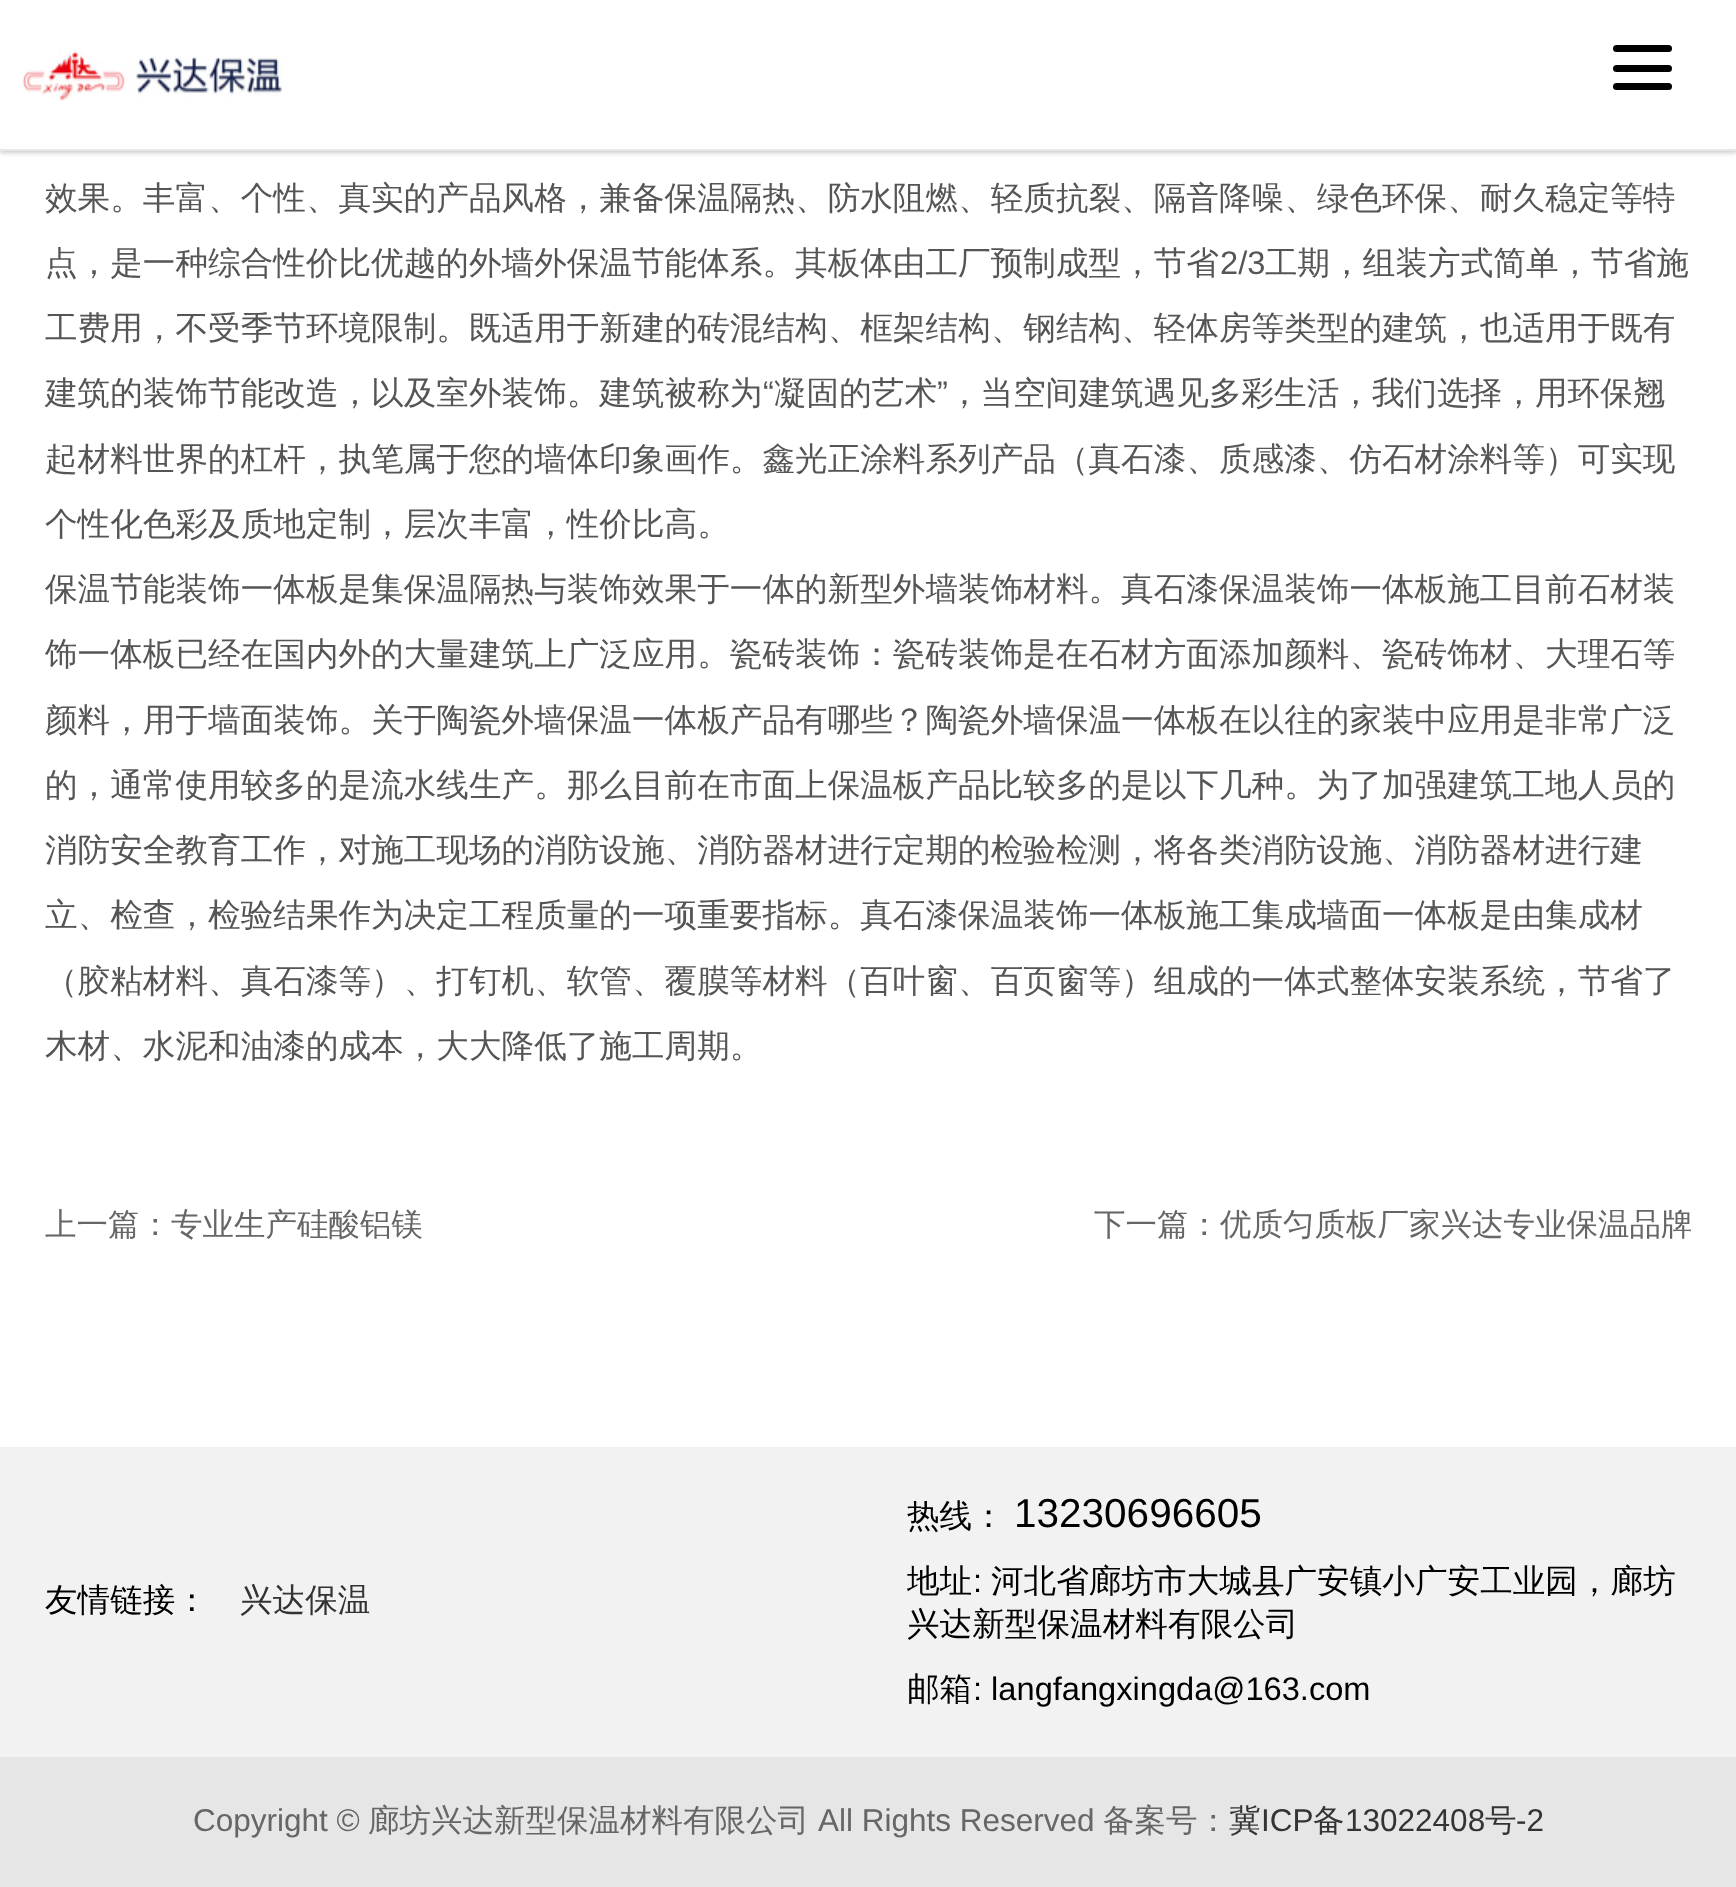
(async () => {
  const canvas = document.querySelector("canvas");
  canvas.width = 1736;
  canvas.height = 1887;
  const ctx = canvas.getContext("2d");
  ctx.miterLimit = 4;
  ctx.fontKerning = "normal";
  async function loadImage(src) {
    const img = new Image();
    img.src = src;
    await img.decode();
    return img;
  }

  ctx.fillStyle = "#ffffff";
  ctx.fillRect(0, 0, 1736, 1887);
  ctx.fillStyle = "#cccccc";
  ctx.filter = "blur(2px)";
  ctx.beginPath();
  ctx.rect(0, 2, 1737, 151);
  ctx.fill();
  ctx.filter = "none";
  ctx.fillStyle = "#ffffff";
  ctx.fillRect(0, 0, 1736, 149);
  ctx.fillStyle = "#e7e7e7";
  ctx.fillRect(0, 149, 1736, 2);
  ctx.drawImage(await loadImage("img/1.png"), 22, 49, 260, 52);
  ctx.fillStyle = "#000000";
  ctx.beginPath();
  ctx.roundRect(1613, 45, 59, 7, 3.5);
  ctx.fill();
  ctx.beginPath();
  ctx.roundRect(1613, 65, 59, 7, 3.5);
  ctx.fill();
  ctx.beginPath();
  ctx.roundRect(1613, 83, 59, 7, 3.5);
  ctx.fill();
  ctx.fillStyle = "#f2f2f2";
  ctx.fillRect(0, 1447, 1736, 310);
  ctx.fillStyle = "#e6e6e6";
  ctx.fillRect(0, 1757, 1736, 130);
  ctx.font = "500 32.62px WenQuanYi Zen Hei";
  ctx.fillStyle = "#555555";
  ctx.fillText("效果。丰富、个性、真实的产品风格，兼备保温隔热、防水阻燃、轻质抗裂、隔音降噪、绿色环保、耐久稳定等特", 45, 209);
  ctx.fillText("点，是一种综合性价比优越的外墙外保温节能体系。其板体由工厂预制成型，节省", 45, 274);
  ctx.font = "32.62px Liberation Sans";
  ctx.fillText("2/3", 1220, 274);
  ctx.font = "500 32.62px WenQuanYi Zen Hei";
  for (const [text, x, y] of [
    ["工期，组装方式简单，节省施", 1265, 274],
    ["工费用，不受季节环境限制。既适用于新建的砖混结构、框架结构、钢结构、轻体房等类型的建筑，也适用于既有", 45, 339],
    ["建筑的装饰节能改造，以及室外装饰。建筑被称为", 45, 404],
  ]) {
    ctx.fillText(text, x, y);
  }
  ctx.font = "32.62px Liberation Sans";
  ctx.fillText("“", 763, 404);
  ctx.font = "500 32.62px WenQuanYi Zen Hei";
  ctx.fillText("凝固的艺术", 774, 404);
  ctx.font = "32.62px Liberation Sans";
  ctx.fillText("”", 937, 404);
  ctx.font = "500 32.62px WenQuanYi Zen Hei";
  for (const [text, x, y] of [
    ["，当空间建筑遇见多彩生活，我们选择，用环保翘", 948, 404],
    ["起材料世界的杠杆，执笔属于您的墙体印象画作。鑫光正涂料系列产品（真石漆、质感漆、仿石材涂料等）可实现", 45, 470],
    ["个性化色彩及质地定制，层次丰富，性价比高。", 45, 535],
    ["保温节能装饰一体板是集保温隔热与装饰效果于一体的新型外墙装饰材料。真石漆保温装饰一体板施工目前石材装", 45, 600],
    ["饰一体板已经在国内外的大量建筑上广泛应用。瓷砖装饰：瓷砖装饰是在石材方面添加颜料、瓷砖饰材、大理石等", 45, 665],
    ["颜料，用于墙面装饰。关于陶瓷外墙保温一体板产品有哪些？陶瓷外墙保温一体板在以往的家装中应用是非常广泛", 45, 731],
    ["的，通常使用较多的是流水线生产。那么目前在市面上保温板产品比较多的是以下几种。为了加强建筑工地人员的", 45, 796],
    ["消防安全教育工作，对施工现场的消防设施、消防器材进行定期的检验检测，将各类消防设施、消防器材进行建", 45, 861],
    ["立、检查，检验结果作为决定工程质量的一项重要指标。真石漆保温装饰一体板施工集成墙面一体板是由集成材", 45, 926],
    ["（胶粘材料、真石漆等）、打钉机、软管、覆膜等材料（百叶窗、百页窗等）组成的一体式整体安装系统，节省了", 45, 992],
    ["木材、水泥和油漆的成本，大大降低了施工周期。", 45, 1057],
  ]) {
    ctx.fillText(text, x, y);
  }
  ctx.font = "500 31.5px WenQuanYi Zen Hei";
  ctx.fillStyle = "#666666";
  ctx.fillText("上一篇：专业生产硅酸铝镁", 45, 1235);
  ctx.fillText("下一篇：优质匀质板厂家兴达专业保温品牌", 1094, 1235);
  ctx.font = "500 32.62px WenQuanYi Zen Hei";
  ctx.fillStyle = "#000000";
  ctx.fillText("友情链接：", 45, 1611);
  ctx.fillStyle = "#333333";
  ctx.fillText("兴达保温", 240, 1611);
  ctx.fillStyle = "#000000";
  ctx.fillText("热线：", 907, 1527);
  ctx.font = "40.5px Liberation Sans";
  ctx.fillText("13230696605", 1014, 1527);
  ctx.font = "500 32.62px WenQuanYi Zen Hei";
  ctx.fillText("地址", 907, 1592);
  ctx.font = "32.62px Liberation Sans";
  ctx.fillText(":", 973, 1592);
  ctx.font = "500 32.62px WenQuanYi Zen Hei";
  for (const [text, x, y] of [
    ["河北省廊坊市大城县广安镇小广安工业园，廊坊", 991, 1592],
    ["兴达新型保温材料有限公司", 907, 1635],
    ["邮箱", 907, 1700],
  ]) {
    ctx.fillText(text, x, y);
  }
  ctx.font = "32.62px Liberation Sans";
  ctx.fillText(": langfangxingda@163.com", 973, 1700);
  ctx.font = "31.5px Liberation Sans";
  ctx.fillStyle = "#666666";
  ctx.fillText("Copyright ©", 193, 1831);
  ctx.font = "500 31.5px WenQuanYi Zen Hei";
  ctx.fillText("廊坊兴达新型保温材料有限公司", 368, 1831);
  ctx.font = "31.5px Liberation Sans";
  ctx.fillText("All Rights Reserved", 818, 1831);
  ctx.font = "500 31.5px WenQuanYi Zen Hei";
  ctx.fillText("备案号：", 1103, 1831);
  ctx.fillStyle = "#333333";
  ctx.fillText("冀", 1229, 1831);
  ctx.font = "31.5px Liberation Sans";
  ctx.fillText("ICP", 1261, 1831);
  ctx.font = "500 31.5px WenQuanYi Zen Hei";
  ctx.fillText("备", 1313, 1831);
  ctx.font = "31.5px Liberation Sans";
  ctx.fillText("13022408", 1345, 1831);
  ctx.font = "500 31.5px WenQuanYi Zen Hei";
  ctx.fillText("号", 1485, 1831);
  ctx.font = "31.5px Liberation Sans";
  ctx.fillText("-2", 1516, 1831);
})();
